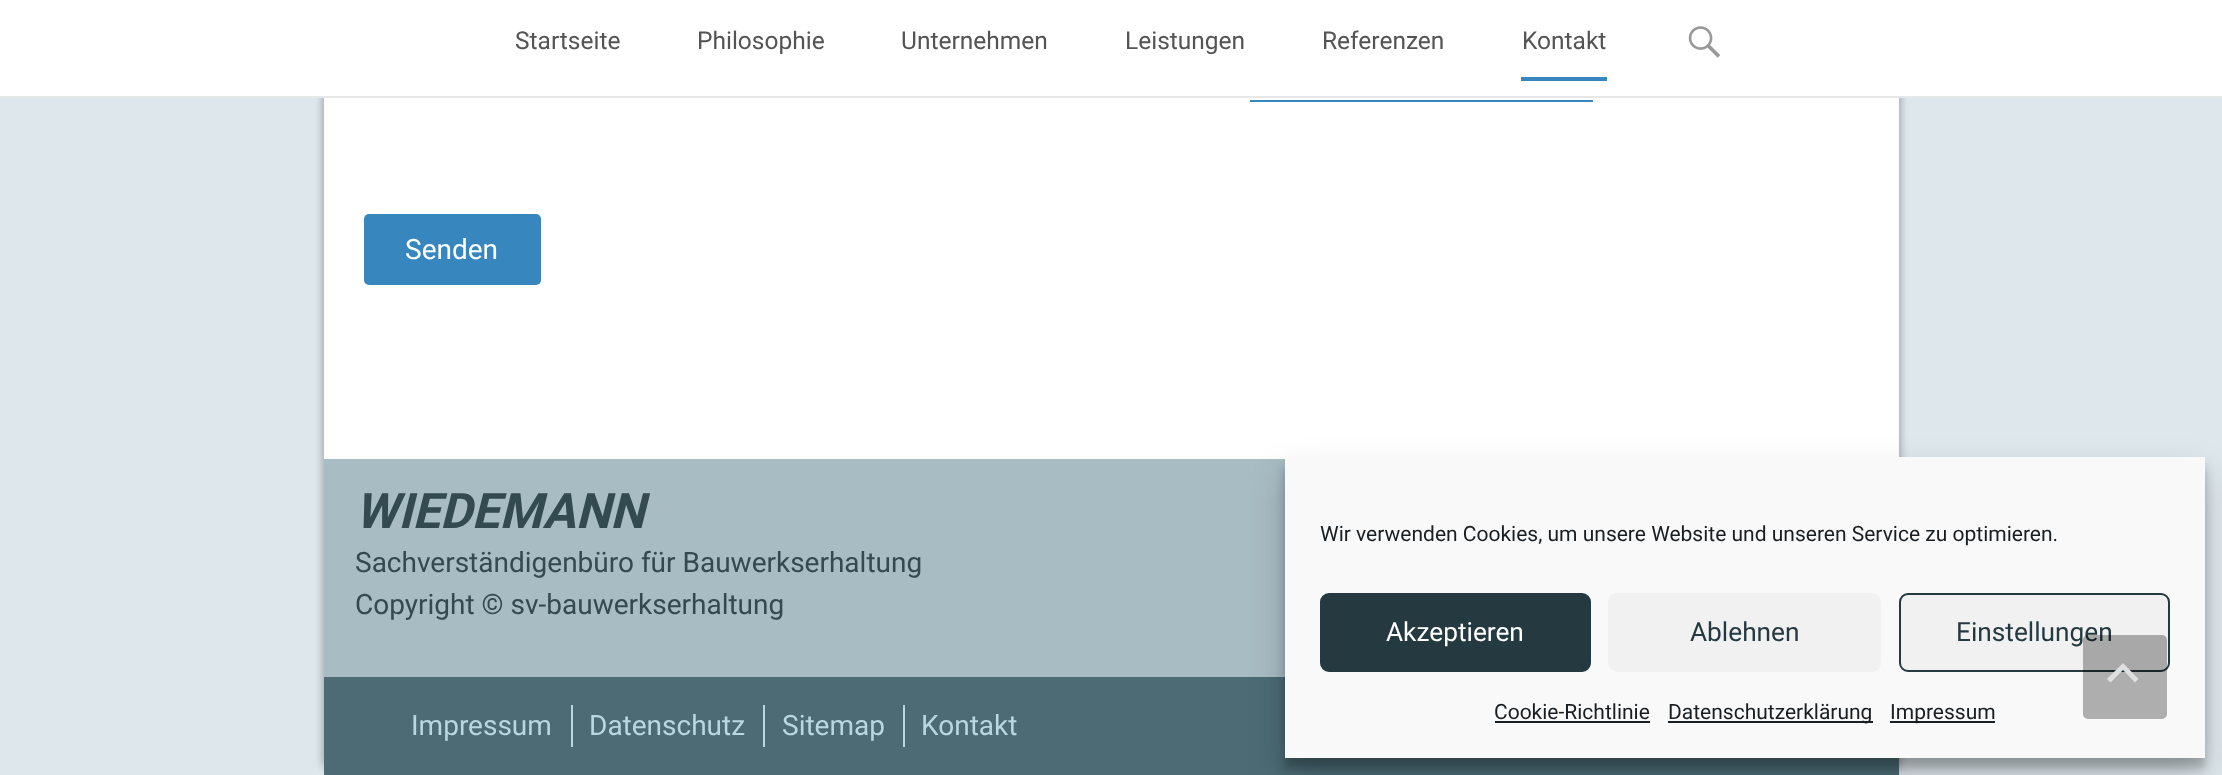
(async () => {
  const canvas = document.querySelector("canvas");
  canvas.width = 2222;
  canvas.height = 775;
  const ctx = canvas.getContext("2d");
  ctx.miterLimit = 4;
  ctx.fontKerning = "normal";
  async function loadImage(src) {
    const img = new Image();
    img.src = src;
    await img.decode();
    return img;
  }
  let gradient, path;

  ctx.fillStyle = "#ffffff";
  ctx.fillRect(0, 0, 2222, 775);
  gradient = ctx.createLinearGradient(1111, -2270, 1111, 775);
  gradient.addColorStop(0, "#253940");
  gradient.addColorStop(0.15, "#6392a6");
  gradient.addColorStop(0.4, "#dee7ec");
  ctx.fillStyle = gradient;
  ctx.fillRect(0, 98, 2222, 677);
  ctx.fillStyle = "rgba(0, 0, 0, 0.2)";
  ctx.filter = "blur(5px)";
  ctx.beginPath();
  ctx.roundRect(324, -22, 1575, 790, 7);
  ctx.fill();
  ctx.filter = "none";
  ctx.filter = "blur(5px)";
  ctx.beginPath();
  ctx.roundRect(324, -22, 1575, 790, 7);
  ctx.fill();
  ctx.filter = "none";
  for (const [x, y, w, h, color] of [
    [324, 98, 1575, 361, "#ffffff"],
    [314, 0, 1595, 96, "#ffffff"],
    [0, 96, 2222, 2, "#e7e7e7"],
    [1521, 77, 86, 4, "#3787be"],
  ]) {
    ctx.fillStyle = color;
    ctx.fillRect(x, y, w, h);
  }
  ctx.drawImage(await loadImage("img/1.png"), 1688, 26, 33, 32);
  ctx.fillRect(1250, 100, 343, 2);
  ctx.beginPath();
  ctx.roundRect(364, 214, 177, 71, 5);
  ctx.fill();
  for (const [x, y, w, h, color] of [
    [324, 677, 1575, 98, "#4c6b75"],
    [324, 459, 961, 218, "#a8bcc3"],
    [571, 705, 2, 42, "#bad7e1"],
    [763, 705, 2, 42, "#bad7e1"],
    [903, 705, 2, 42, "#bad7e1"],
  ]) {
    ctx.fillStyle = color;
    ctx.fillRect(x, y, w, h);
  }
  ctx.fillStyle = "rgba(0, 0, 0, 0.23)";
  ctx.filter = "blur(5px)";
  ctx.beginPath();
  ctx.rect(1285, 467, 920, 301);
  ctx.fill();
  ctx.filter = "none";
  ctx.fillStyle = "rgba(0, 0, 0, 0.19)";
  ctx.filter = "blur(17.5px)";
  ctx.beginPath();
  ctx.rect(1285, 474, 920, 301);
  ctx.fill();
  ctx.filter = "none";
  ctx.fillStyle = "#f9f9f9";
  ctx.fillRect(1285, 457, 920, 301);
  ctx.fillStyle = "#253940";
  ctx.beginPath();
  ctx.roundRect(1321, 594, 269, 77, 8);
  ctx.fill();
  ctx.strokeStyle = "#253940";
  ctx.lineWidth = 2;
  ctx.stroke();
  ctx.fillStyle = "#f1f1f1";
  ctx.beginPath();
  ctx.roundRect(1608, 593, 273, 79, 9);
  ctx.fill();
  ctx.beginPath();
  ctx.roundRect(1900, 594, 269, 77, 8);
  ctx.fill();
  ctx.stroke();
  for (const [x, y, w, h, color] of [
    [1495, 721, 155, 2, "#191e23"],
    [1668, 721, 205, 2, "#191e23"],
    [1890, 721, 105, 2, "#191e23"],
  ]) {
    ctx.fillStyle = color;
    ctx.fillRect(x, y, w, h);
  }
  ctx.font = "24.5px Roboto";
  ctx.fillStyle = "#545454";
  for (const [text, x, y] of [
    ["Startseite", 515, 49],
    ["Philosophie", 697, 49],
    ["Unternehmen", 901, 49],
    ["Leistungen", 1125, 49],
    ["Referenzen", 1322, 49],
    ["Kontakt", 1522, 49],
  ]) {
    ctx.fillText(text, x, y);
  }
  ctx.font = "28px Roboto";
  ctx.fillStyle = "#ffffff";
  ctx.fillText("Senden", 405, 259);
  ctx.font = "italic bold 49px Roboto";
  ctx.fillStyle = "#334a51";
  ctx.fillText("WIEDEMANN", 355, 528);
  ctx.font = "28px Roboto";
  ctx.fillText("Sachverständigenbüro für Bauwerkserhaltung", 355, 572);
  ctx.fillText("Copyright © sv-bauwerkserhaltung", 355, 614);
  ctx.fillStyle = "#bad7e1";
  for (const [text, x, y] of [
    ["Impressum", 411, 735],
    ["Datenschutz", 589, 735],
    ["Sitemap", 782, 735],
    ["Kontakt", 921, 735],
  ]) {
    ctx.fillText(text, x, y);
  }
  ctx.font = "21px Roboto";
  ctx.fillStyle = "#191e23";
  ctx.fillText("Wir verwenden Cookies, um unsere Website und unseren Service zu optimieren.", 1320, 541);
  ctx.font = "26.25px Roboto";
  ctx.fillStyle = "#ffffff";
  ctx.fillText("Akzeptieren", 1386, 641);
  ctx.fillStyle = "#253940";
  ctx.fillText("Ablehnen", 1690, 641);
  ctx.fillText("Einstellungen", 1956, 641);
  ctx.font = "21px Roboto";
  ctx.fillStyle = "#191e23";
  for (const [text, x, y] of [
    ["Cookie-Richtlinie", 1494, 719],
    ["Datenschutzerklärung", 1668, 719],
    ["Impressum", 1890, 719],
  ]) {
    ctx.fillText(text, x, y);
  }
  ctx.fillStyle = "rgba(0, 0, 0, 0.3)";
  ctx.beginPath();
  ctx.roundRect(2083, 635, 84, 84, 5);
  ctx.fill();
  ctx.fillStyle = "#dfdfdf";
  path = new Path2D("M2107 679L2123 663L2138.5 679L2135 682.5L2123 670L2110.5 682.5Z");
  ctx.fill(path);
})();
